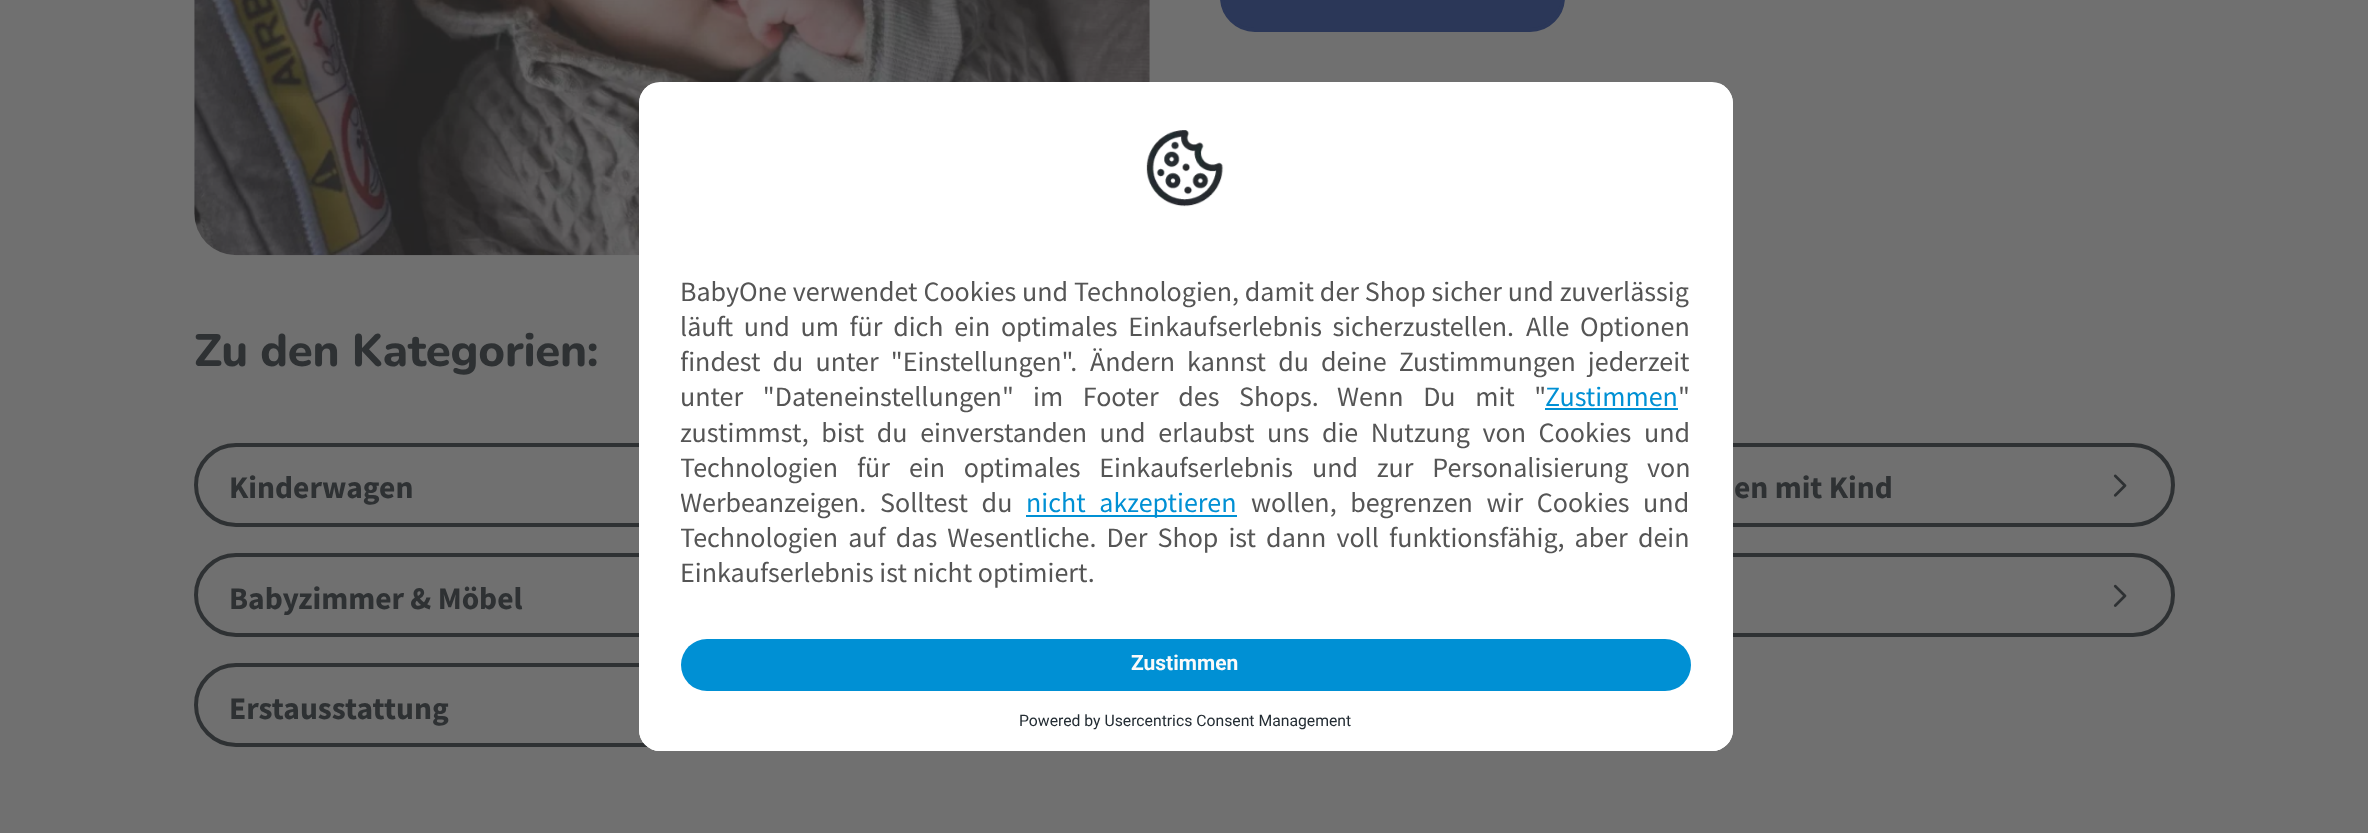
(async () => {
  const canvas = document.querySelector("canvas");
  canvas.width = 2368;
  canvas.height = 833;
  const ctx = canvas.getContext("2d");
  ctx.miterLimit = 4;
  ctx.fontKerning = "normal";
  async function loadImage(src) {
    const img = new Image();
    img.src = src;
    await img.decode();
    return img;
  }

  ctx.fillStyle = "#707070";
  ctx.fillRect(0, 0, 2368, 833);
  ctx.drawImage(await loadImage("img/2.png"), 194, 0, 956, 256);
  ctx.beginPath();
  ctx.roundRect(196, 445, 639, 80, 40);
  ctx.strokeStyle = "#2e3133";
  ctx.lineWidth = 4;
  ctx.stroke();
  ctx.beginPath();
  ctx.roundRect(1535, 445, 638, 80, 40);
  ctx.stroke();
  ctx.beginPath();
  ctx.roundRect(196, 555, 639, 80, 40);
  ctx.stroke();
  ctx.beginPath();
  ctx.roundRect(1535, 555, 638, 80, 40);
  ctx.stroke();
  ctx.beginPath();
  ctx.roundRect(196, 665, 639, 80, 40);
  ctx.stroke();
  ctx.fillStyle = "#ffffff";
  ctx.beginPath();
  ctx.roundRect(639, 82, 1094, 669, 21);
  ctx.fill();
  ctx.save();
  ctx.beginPath();
  ctx.roundRect(639, 82, 1094, 669, 21);
  ctx.clip();
  ctx.beginPath();
  ctx.roundRect(639, 82, 1094, 543, [21, 21, 0, 0]);
  ctx.clip();
  ctx.fillRect(639, 84, 1094, 541);
  ctx.restore();
  ctx.drawImage(await loadImage("img/1.png"), 1146, 130, 78, 77);
  ctx.fillStyle = "#0090d4";
  ctx.fillRect(1545, 408, 133, 2);
  ctx.fillRect(1026, 515, 211, 2);
  ctx.fillStyle = "#ffffff";
  ctx.beginPath();
  ctx.roundRect(639, 625, 1094, 126, [0, 0, 21, 21]);
  ctx.fill();
  ctx.fillStyle = "#0090d4";
  ctx.beginPath();
  ctx.roundRect(681, 639, 1010, 52, 26);
  ctx.fill();
  ctx.fillStyle = "#2b3758";
  ctx.beginPath();
  ctx.roundRect(1222, -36, 341, 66, 33);
  ctx.fill();
  ctx.strokeStyle = "#2b3758";
  ctx.stroke();
  ctx.drawImage(await loadImage("img/3.png"), 2113, 474, 14, 23);
  ctx.drawImage(await loadImage("img/4.png"), 2113, 584, 14, 23);
  ctx.wordSpacing = "0.25px";
  ctx.font = "28px Source Sans Pro";
  ctx.fillStyle = "#555555";
  ctx.fillText("BabyOne verwendet Cookies und Technologien, damit der Shop sicher und zuverlässig", 680, 301);
  ctx.wordSpacing = "5px";
  ctx.fillText("läuft und um für dich ein optimales Einkaufserlebnis sicherzustellen.", 680, 336);
  ctx.fillText("Alle Optionen", 1526, 336);
  ctx.save();
  ctx.beginPath();
  ctx.rect(681, 266, 1010, 331);
  ctx.clip();
  ctx.wordSpacing = "6.5px";
  ctx.fillText("findest du unter \"Einstellungen\".", 680, 371);
  ctx.restore();
  ctx.wordSpacing = "6.5px";
  ctx.fillText("Ändern kannst du deine Zustimmungen jederzeit", 1090, 371);
  ctx.wordSpacing = "14px";
  for (const [text, x, y] of [
    ["unter \"Dateneinstellungen\"", 680, 406],
    ["im Footer des Shops.", 1033, 406],
    ["Wenn Du mit \"", 1337, 406],
  ]) {
    ctx.fillText(text, x, y);
  }
  ctx.wordSpacing = "0px";
  ctx.fillStyle = "#0090d4";
  ctx.fillText("Zustimmen", 1545, 406);
  ctx.fillStyle = "#555555";
  ctx.fillText("\"", 1678, 406);
  ctx.wordSpacing = "7px";
  ctx.fillText("zustimmst, bist du einverstanden und erlaubst uns die Nutzung von Cookies und", 680, 442);
  ctx.save();
  ctx.beginPath();
  ctx.rect(681, 266, 1010, 331);
  ctx.clip();
  ctx.wordSpacing = "13.25px";
  ctx.fillText("Technologien für ein optimales Einkaufserlebnis und zur Personalisierung von", 680, 477);
  ctx.wordSpacing = "0px";
  ctx.fillText("Werbeanzeigen.", 680, 512);
  ctx.restore();
  ctx.wordSpacing = "8px";
  ctx.fillText("Solltest du", 880, 512);
  ctx.fillStyle = "#0090d4";
  ctx.fillText("nicht akzeptieren", 1026, 512);
  ctx.fillStyle = "#555555";
  ctx.fillText("wollen, begrenzen wir Cookies und", 1251, 512);
  ctx.save();
  ctx.beginPath();
  ctx.rect(681, 266, 1010, 331);
  ctx.clip();
  ctx.wordSpacing = "4.5px";
  ctx.fillText("Technologien auf das Wesentliche. Der Shop ist dann voll funktionsfähig, aber dein", 680, 547);
  ctx.restore();
  ctx.wordSpacing = "0px";
  ctx.fillText("Einkaufserlebnis ist nicht optimiert.", 680, 582);
  ctx.font = "bold 21px Roboto";
  ctx.fillStyle = "#fafafa";
  ctx.fillText("Zustimmen", 1131, 670);
  ctx.font = "15.75px Roboto";
  ctx.fillStyle = "#232c33";
  ctx.fillText("Powered by Usercentrics Consent Management", 1019, 726);
  ctx.letterSpacing = "-0.25px";
  ctx.font = "800 45.5px Nunito";
  ctx.fillStyle = "#2e3133";
  ctx.fillText("Zu den Kategorien:", 194, 366);
  ctx.letterSpacing = "0px";
  ctx.font = "bold 31.5px Source Sans Pro";
  for (const [text, x, y] of [
    ["Kinderwagen", 229, 498],
    ["en mit Kind", 1734, 498],
    ["Babyzimmer & Möbel", 229, 609],
    ["Erstausstattung", 229, 719],
  ]) {
    ctx.fillText(text, x, y);
  }
})();
